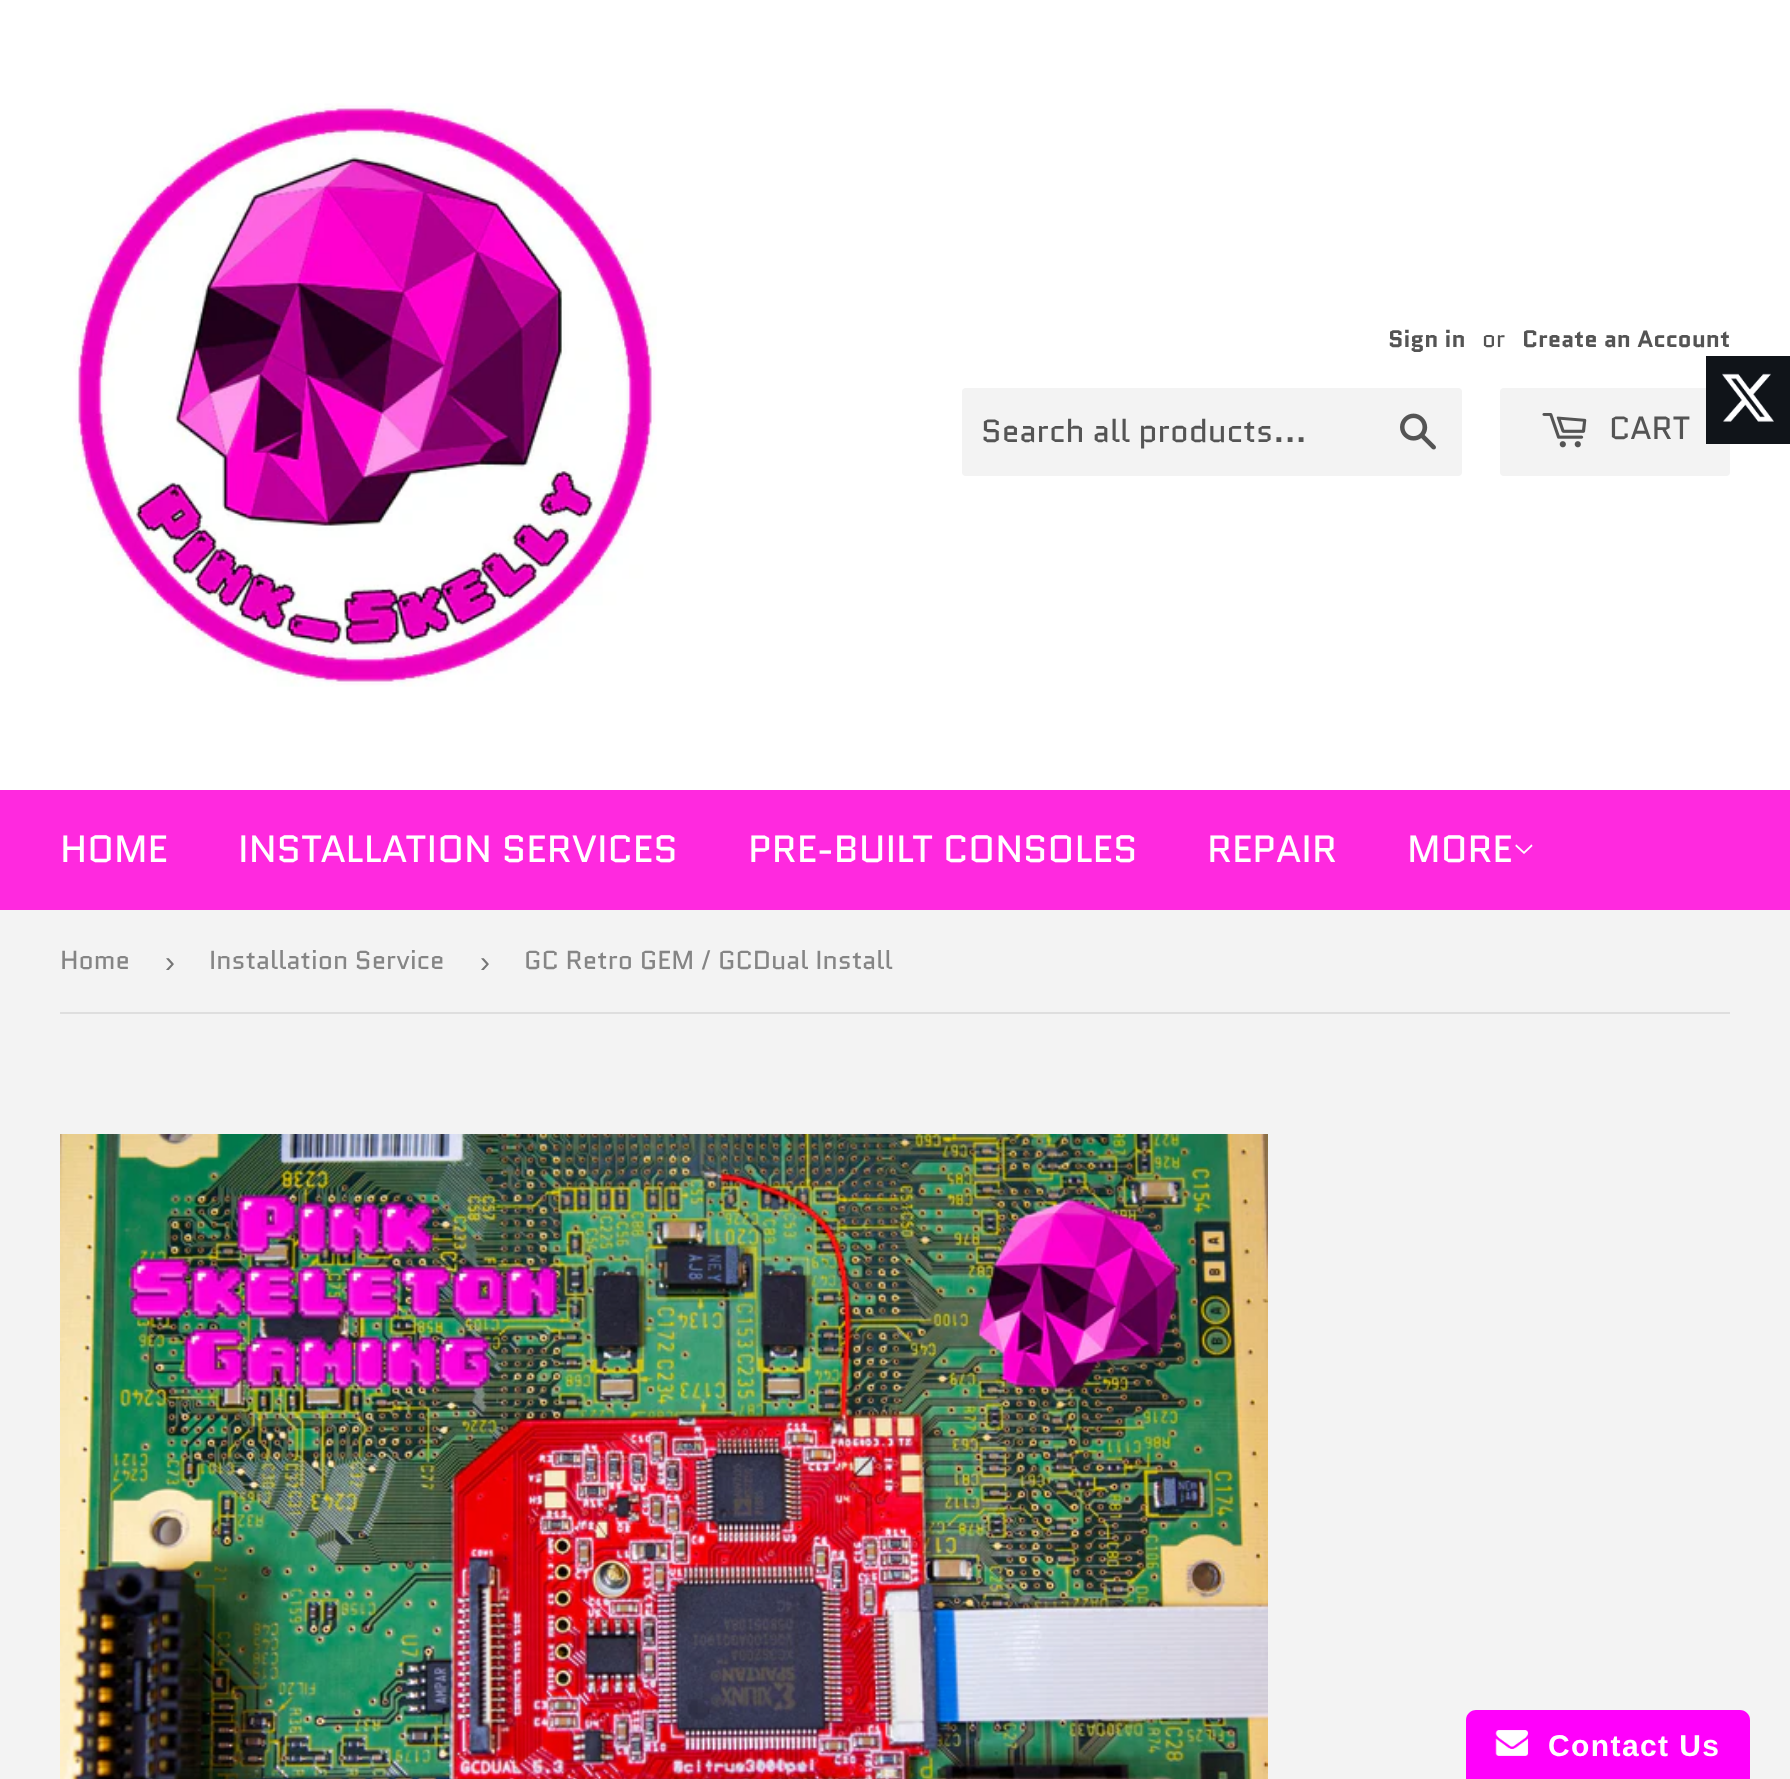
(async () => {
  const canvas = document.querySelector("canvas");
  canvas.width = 1790;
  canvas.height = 1779;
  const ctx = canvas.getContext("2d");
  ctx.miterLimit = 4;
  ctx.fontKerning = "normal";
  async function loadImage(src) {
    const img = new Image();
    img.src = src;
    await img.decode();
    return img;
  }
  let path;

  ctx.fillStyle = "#f3f3f3";
  ctx.fillRect(0, 0, 1790, 1779);
  ctx.fillStyle = "#ffffff";
  ctx.fillRect(0, 0, 1790, 790);
  ctx.drawImage(await loadImage("img/1.png"), 73, 103, 584, 584);
  ctx.fillStyle = "#f3f3f3";
  ctx.beginPath();
  ctx.roundRect(962, 388, 500, 88, 4);
  ctx.fill();
  ctx.drawImage(await loadImage("img/2.png"), 1400, 413, 36, 37);
  ctx.beginPath();
  ctx.roundRect(1500, 388, 230, 88, 4);
  ctx.fill();
  ctx.drawImage(await loadImage("img/3.png"), 1542, 413, 45, 35);
  ctx.fillStyle = "#ff29df";
  ctx.fillRect(0, 790, 1790, 120);
  ctx.drawImage(await loadImage("img/4.png"), 1515, 844, 18, 10);
  ctx.fillStyle = "#101419";
  ctx.fillRect(1706, 356, 84, 88);
  ctx.drawImage(await loadImage("img/5.png"), 1722, 373, 52, 49);
  ctx.fillStyle = "#dedede";
  ctx.fillRect(60, 1012, 1670, 2);
  ctx.drawImage(await loadImage("img/6.png"), 60, 1134, 1208, 645);
  ctx.fillStyle = "#ff00fb";
  path = new Path2D("M1476 1710H1740C1745.5 1710 1750 1714.5 1750 1720V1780H1466V1720C1466 1714.5 1470.5 1710 1476 1710Z");
  ctx.fill(path);
  ctx.drawImage(await loadImage("img/7.png"), 1495, 1730, 34, 26);
  ctx.font = "bold 23.75px Quantico";
  ctx.fillStyle = "#545454";
  ctx.fillText("Sign in", 1388, 347);
  ctx.font = "23.75px Quantico";
  ctx.fillText("or", 1482, 347);
  ctx.font = "bold 23.75px Quantico";
  ctx.fillText("Create an Account", 1522, 347);
  ctx.font = "32px Quantico";
  ctx.fillText("Search all products...", 981, 442);
  ctx.fillText("CART", 1609, 439);
  ctx.font = "38px Quantico";
  ctx.fillStyle = "#ffffff";
  for (const [text, x, y] of [
    ["HOME", 60, 862],
    ["INSTALLATION SERVICES", 238, 862],
    ["PRE-BUILT CONSOLES", 748, 862],
    ["REPAIR", 1207, 862],
    ["MORE", 1407, 862],
  ]) {
    ctx.fillText(text, x, y);
  }
  ctx.font = "26px Quantico";
  ctx.fillStyle = "#858585";
  ctx.fillText("Home", 60, 969);
  ctx.font = "30px Liberation Sans";
  ctx.fillStyle = "#767676";
  ctx.fillText("›", 165, 972);
  ctx.font = "26px Quantico";
  ctx.fillStyle = "#858585";
  ctx.fillText("Installation Service", 209, 969);
  ctx.font = "30px Liberation Sans";
  ctx.fillStyle = "#767676";
  ctx.fillText("›", 480, 972);
  ctx.font = "26px Quantico";
  ctx.fillStyle = "#858585";
  ctx.fillText("GC Retro GEM / GCDual Install", 524, 969);
  ctx.letterSpacing = "1.4px";
  ctx.font = "bold 30px Liberation Sans";
  ctx.fillStyle = "#ffffff";
  ctx.fillText("Contact Us", 1548, 1756);
})();
